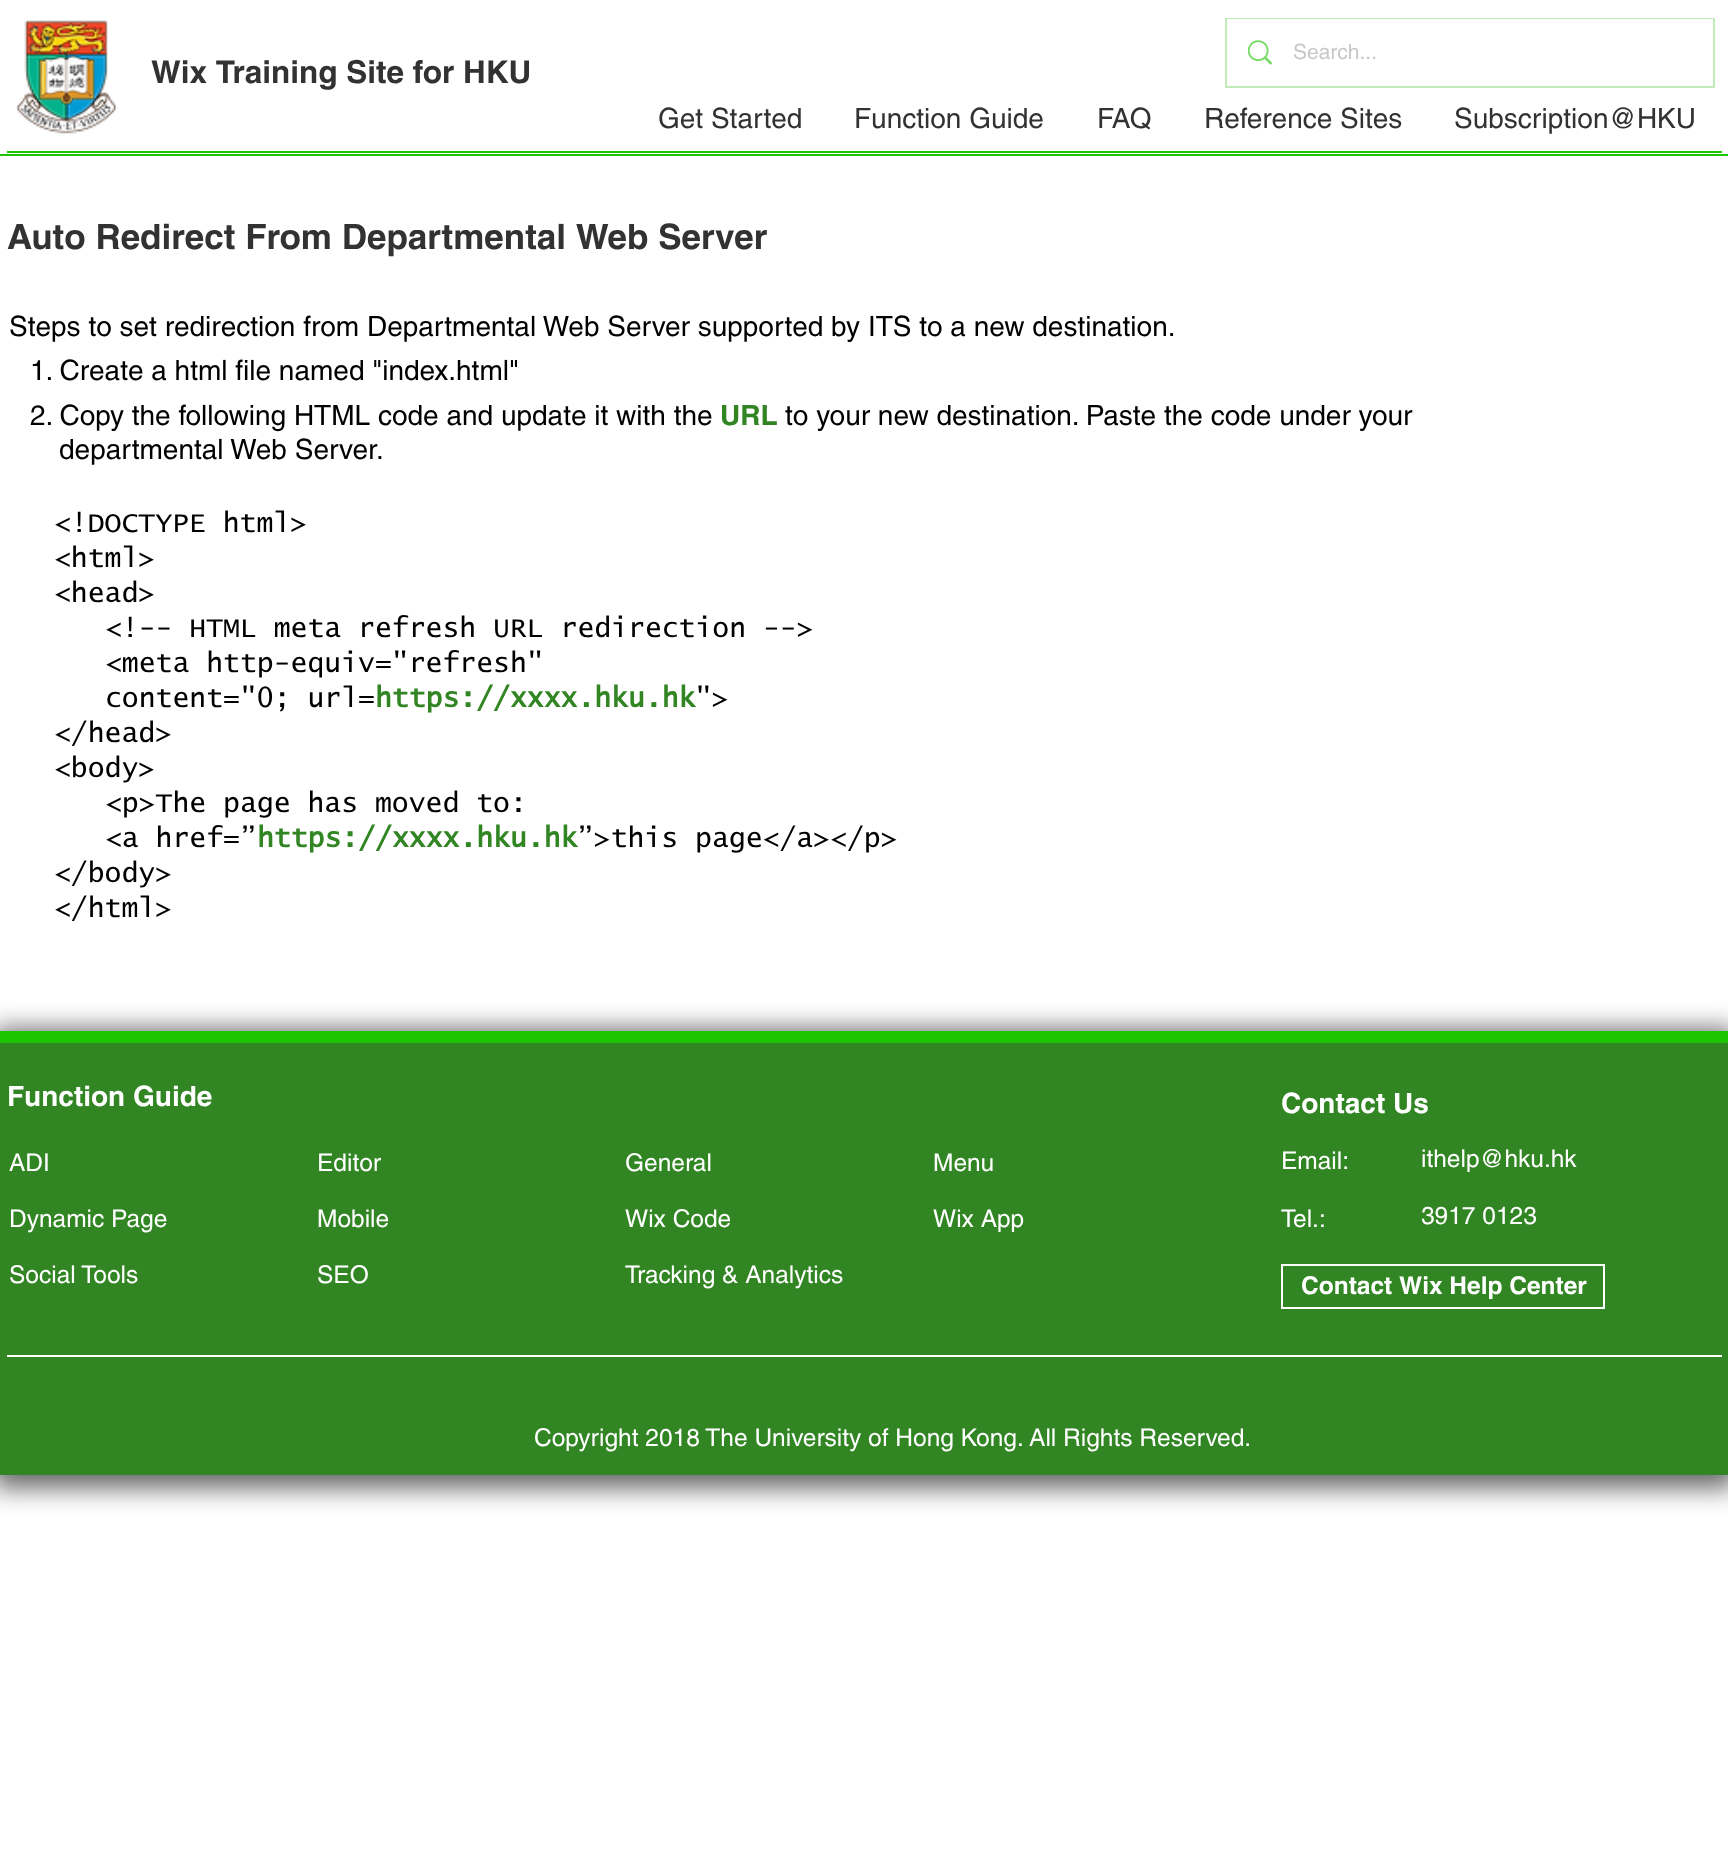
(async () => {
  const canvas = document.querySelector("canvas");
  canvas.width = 1728;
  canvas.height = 1855;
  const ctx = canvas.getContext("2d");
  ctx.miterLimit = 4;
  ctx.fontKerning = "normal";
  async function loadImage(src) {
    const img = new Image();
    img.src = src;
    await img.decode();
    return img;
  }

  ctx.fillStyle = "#ffffff";
  ctx.fillRect(0, 0, 1728, 1855);
  ctx.drawImage(await loadImage("img/1.png"), 16, 20, 100, 114);
  ctx.strokeStyle = "#c1ecb9";
  ctx.lineWidth = 2;
  ctx.strokeRect(1226, 19, 488, 68);
  ctx.fillRect(1227, 19, 486, 1);
  ctx.drawImage(await loadImage("img/2.png"), 1248, 40, 24, 25);
  ctx.fillStyle = "#1dc400";
  ctx.fillRect(7, 151, 1715, 2);
  ctx.fillRect(0, 154, 1728, 2);
  ctx.fillStyle = "rgba(0, 0, 0, 0.6)";
  ctx.filter = "blur(13px)";
  ctx.beginPath();
  ctx.rect(-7, 1029, 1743, 459);
  ctx.fill();
  ctx.filter = "none";
  ctx.fillStyle = "#318522";
  ctx.fillRect(0, 1043, 1728, 432);
  ctx.fillStyle = "#1dc400";
  ctx.fillRect(0, 1031, 1728, 12);
  ctx.strokeStyle = "#ffffff";
  ctx.strokeRect(1282, 1265, 322, 43);
  ctx.fillStyle = "#ffffff";
  ctx.fillRect(7, 1355, 1715, 2);
  ctx.font = "21px helvetica";
  ctx.fillStyle = "#c8c8c8";
  ctx.fillText("Search...", 1293, 59);
  ctx.font = "bold 31.5px helvetica";
  ctx.fillStyle = "#323232";
  ctx.fillText("Wix Training Site for HKU", 151, 83);
  ctx.font = "28px helvetica";
  for (const [text, x, y] of [
    ["Get Started", 658, 128],
    ["Function Guide", 854, 128],
    ["FAQ", 1097, 128],
    ["Reference Sites", 1204, 128],
    ["Subscription@HKU", 1454, 128],
  ]) {
    ctx.fillText(text, x, y);
  }
  ctx.font = "bold 35px helvetica";
  ctx.fillText("Auto Redirect From Departmental Web Server", 7, 249);
  ctx.font = "28px helvetica";
  ctx.fillStyle = "#000000";
  for (const [text, x, y] of [
    ["Steps to set redirection from Departmental Web Server supported by ITS to a new destination.", 9, 336],
    ["1. Create a html file named \"index.html\"", 30, 380],
    ["2. Copy the following HTML code and update it with the", 30, 425],
  ]) {
    ctx.fillText(text, x, y);
  }
  ctx.font = "bold 28px helvetica";
  ctx.fillStyle = "#318522";
  ctx.fillText("URL", 720, 425);
  ctx.font = "28px helvetica";
  ctx.fillStyle = "#000000";
  ctx.fillText("to your new destination. Paste the code under your", 785, 425);
  ctx.fillText("departmental Web Server.", 59, 459);
  ctx.font = "28px 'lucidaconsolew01'";
  for (const [text, x, y] of [
    ["<!DOCTYPE html>", 54, 532],
    ["<html>", 54, 567],
    ["<head>", 54, 602],
    ["<\!-- HTML meta refresh URL redirection -->", 105, 637],
    ["<meta http-equiv=\"refresh\"", 105, 672],
    ["content=\"0; url=", 105, 707],
  ]) {
    ctx.fillText(text, x, y);
  }
  ctx.font = "bold 28px 'lucidaconsolew01'";
  ctx.fillStyle = "#318522";
  ctx.fillText("https://xxxx.hku.hk", 375, 707);
  ctx.font = "28px 'lucidaconsolew01'";
  ctx.fillStyle = "#000000";
  for (const [text, x, y] of [
    ["\">", 695, 707],
    ["<\/head>", 54, 742],
    ["<body>", 54, 777],
    ["<p>The page has moved to:", 105, 812],
    ["<a href=”", 105, 847],
  ]) {
    ctx.fillText(text, x, y);
  }
  ctx.font = "bold 28px 'lucidaconsolew01'";
  ctx.fillStyle = "#318522";
  ctx.fillText("https://xxxx.hku.hk", 257, 847);
  ctx.font = "28px 'lucidaconsolew01'";
  ctx.fillStyle = "#000000";
  for (const [text, x, y] of [
    ["”>this page<\/a><\/p>", 577, 847],
    ["<\/body>", 54, 882],
    ["<\/html>", 54, 917],
  ]) {
    ctx.fillText(text, x, y);
  }
  ctx.font = "bold 28px helvetica";
  ctx.fillStyle = "#ffffff";
  ctx.fillText("Function Guide", 7, 1106);
  ctx.fillText("Contact Us", 1281, 1113);
  ctx.font = "24.5px helvetica";
  for (const [text, x, y] of [
    ["ADI", 9, 1171],
    ["Dynamic Page", 9, 1227],
    ["Social Tools", 9, 1283],
    ["Editor", 317, 1171],
    ["Mobile", 317, 1227],
    ["SEO", 317, 1283],
    ["General", 625, 1171],
    ["Wix Code", 625, 1227],
    ["Tracking & Analytics", 625, 1283],
    ["Menu", 933, 1171],
    ["Wix App", 933, 1227],
    ["Email:", 1281, 1169],
    ["ithelp@hku.hk", 1421, 1167],
    ["Tel.:", 1281, 1227],
    ["3917 0123", 1421, 1224],
  ]) {
    ctx.fillText(text, x, y);
  }
  ctx.font = "bold 24.5px helvetica";
  ctx.fillText("Contact Wix Help Center", 1301, 1294);
  ctx.font = "24.5px helvetica";
  ctx.fillText("Copyright 2018 The University of Hong Kong. All Rights Reserved.", 534, 1446);
})();
